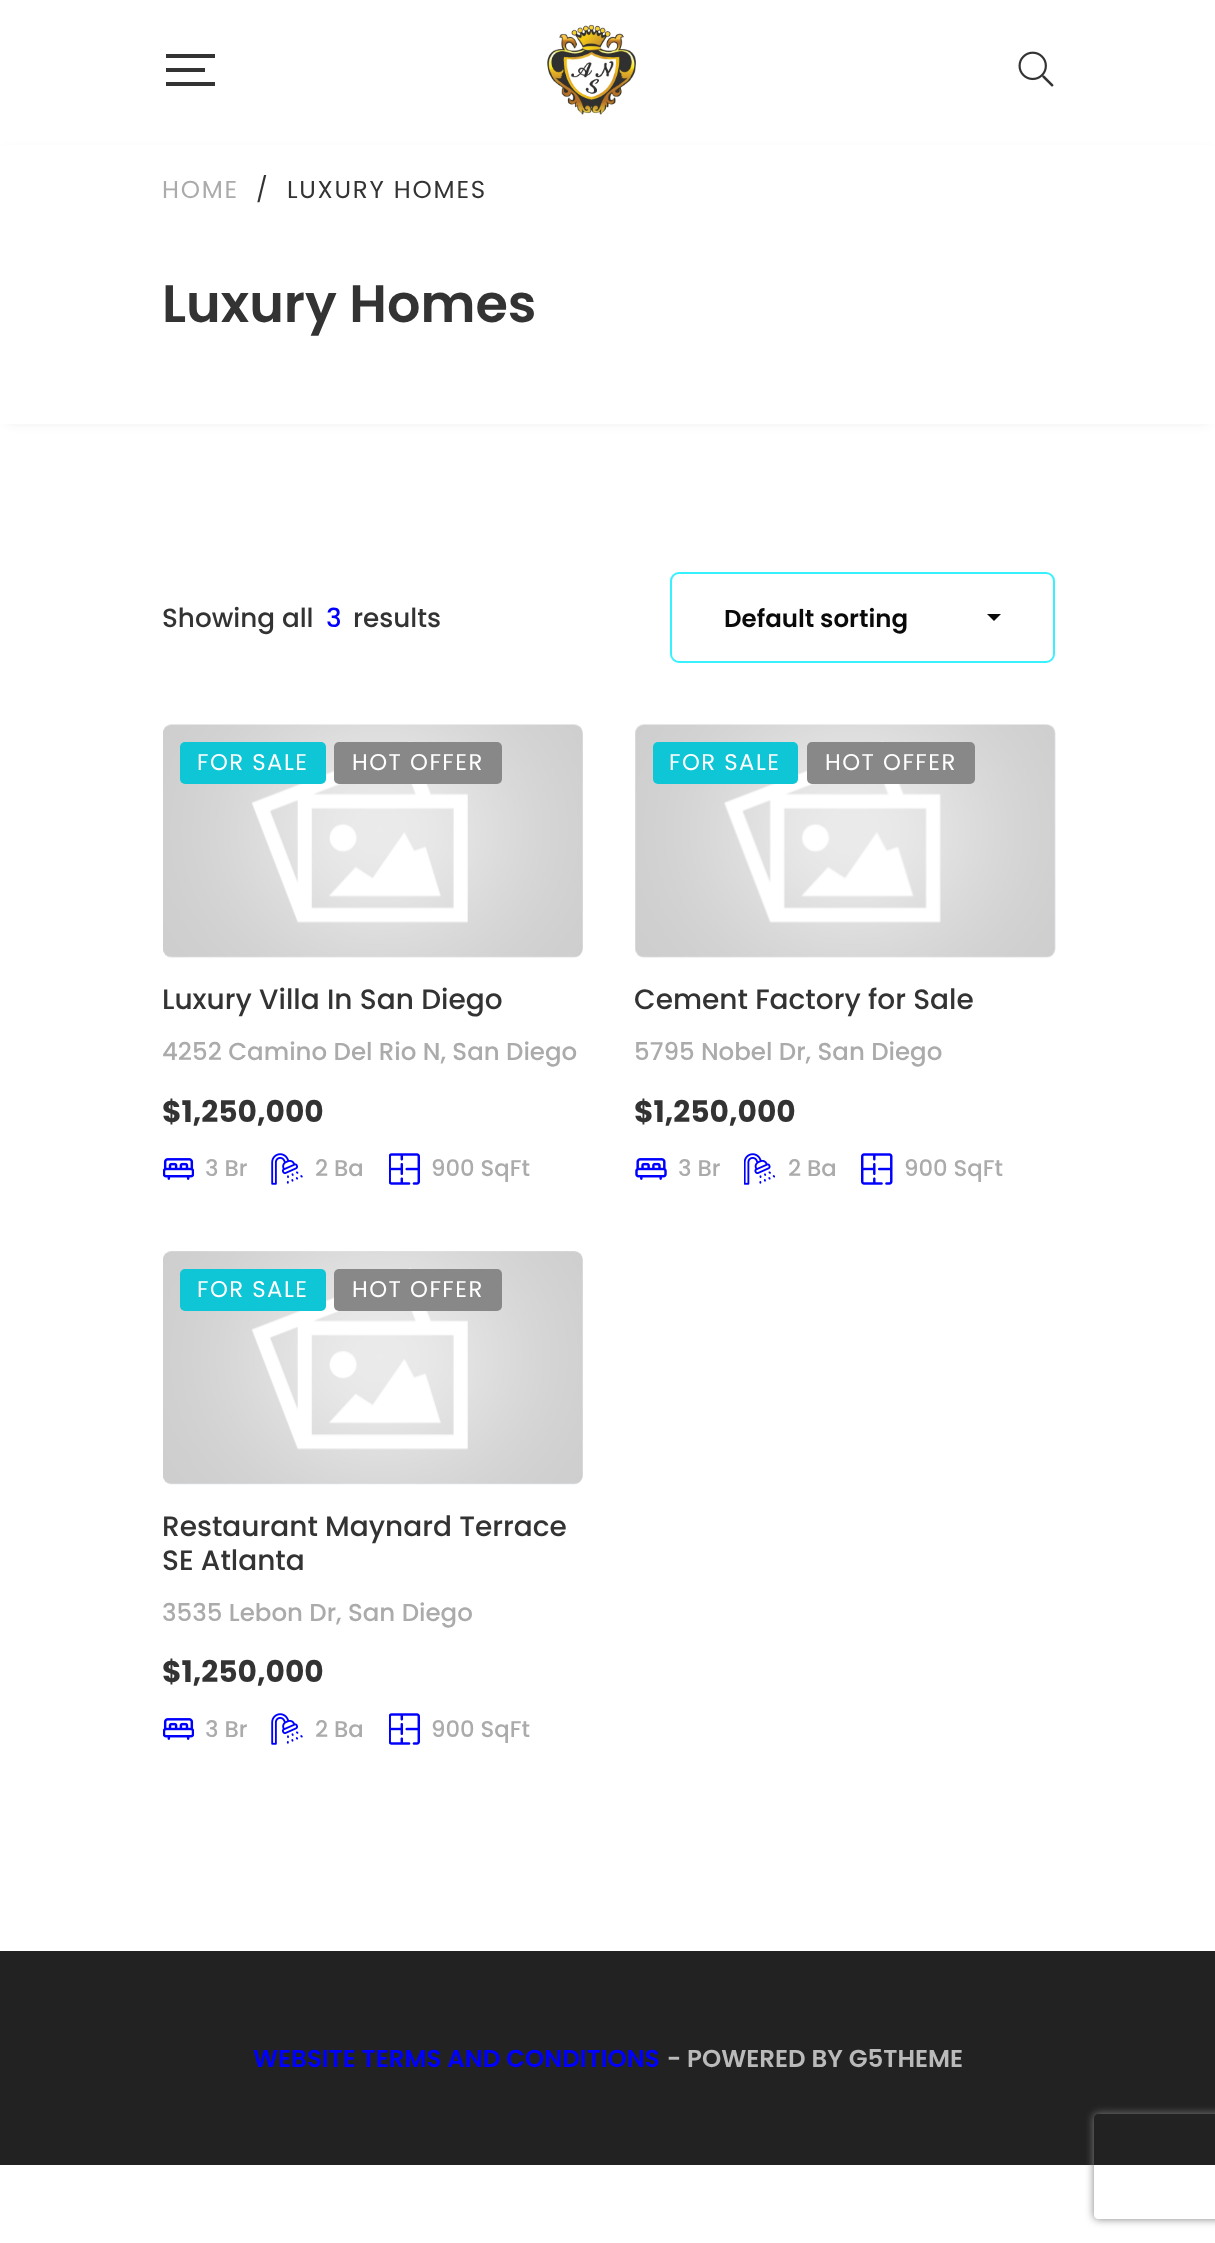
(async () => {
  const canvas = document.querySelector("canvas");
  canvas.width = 1215;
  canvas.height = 2243;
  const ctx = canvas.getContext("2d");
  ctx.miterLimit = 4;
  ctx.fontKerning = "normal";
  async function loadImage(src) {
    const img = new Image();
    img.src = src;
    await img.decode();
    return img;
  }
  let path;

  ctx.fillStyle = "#ffffff";
  ctx.fillRect(0, 0, 1215, 2243);
  for (const [x, y, w, h, color] of [
    [166, 68, 39, 4, "#333333"],
    [166, 54, 49, 4, "#333333"],
    [166, 82, 49, 4, "#333333"],
  ]) {
    ctx.fillStyle = color;
    ctx.fillRect(x, y, w, h);
  }
  ctx.drawImage(await loadImage("img/1.png"), 547, 24, 89, 91);
  ctx.drawImage(await loadImage("img/2.png"), 1018, 51, 36, 36);
  ctx.fillStyle = "rgba(51, 51, 51, 0.1)";
  ctx.filter = "blur(6px)";
  ctx.beginPath();
  ctx.rect(7, 152, 1202, 270);
  ctx.fill();
  ctx.filter = "none";
  ctx.fillStyle = "#ffffff";
  ctx.fillRect(0, 145, 1215, 279);
  ctx.beginPath();
  ctx.roundRect(671, 573, 383, 89, 8);
  ctx.strokeStyle = "#38f1ff";
  ctx.lineWidth = 2;
  ctx.stroke();
  ctx.fillStyle = "#0a0a0a";
  path = new Path2D("M987 614H1001L994 621Z");
  ctx.fill(path);
  ctx.fillStyle = "#e0e8ee";
  ctx.beginPath();
  ctx.roundRect(163, 725, 420, 232, 9);
  ctx.fill();
  ctx.drawImage(await loadImage("img/3.png"), 163, 724, 420, 234);
  ctx.fillStyle = "#0ec6d5";
  ctx.beginPath();
  ctx.roundRect(180, 742, 146, 42, 5);
  ctx.fill();
  ctx.fillStyle = "#888888";
  ctx.beginPath();
  ctx.roundRect(334, 742, 168, 42, 5);
  ctx.fill();
  ctx.drawImage(await loadImage("img/4.png"), 163, 1158, 31, 22);
  ctx.drawImage(await loadImage("img/5.png"), 271, 1153, 32, 32);
  ctx.drawImage(await loadImage("img/6.png"), 389, 1153, 31, 32);
  ctx.fillStyle = "#e0e8ee";
  ctx.beginPath();
  ctx.roundRect(635, 725, 420, 232, 9);
  ctx.fill();
  ctx.drawImage(await loadImage("img/7.png"), 635, 724, 421, 234);
  ctx.fillStyle = "#0ec6d5";
  ctx.beginPath();
  ctx.roundRect(653, 742, 145, 42, 5);
  ctx.fill();
  ctx.fillStyle = "#888888";
  ctx.beginPath();
  ctx.roundRect(807, 742, 168, 42, 5);
  ctx.fill();
  ctx.drawImage(await loadImage("img/8.png"), 635, 1158, 32, 22);
  ctx.drawImage(await loadImage("img/9.png"), 744, 1153, 31, 32);
  ctx.drawImage(await loadImage("img/10.png"), 861, 1153, 32, 32);
  ctx.fillStyle = "#e0e8ee";
  ctx.beginPath();
  ctx.roundRect(163, 1251, 420, 233, 9);
  ctx.fill();
  ctx.drawImage(await loadImage("img/11.png"), 163, 1251, 420, 234);
  ctx.fillStyle = "#0ec6d5";
  ctx.beginPath();
  ctx.roundRect(180, 1269, 146, 42, 5);
  ctx.fill();
  ctx.fillStyle = "#888888";
  ctx.beginPath();
  ctx.roundRect(334, 1269, 168, 42, 5);
  ctx.fill();
  ctx.drawImage(await loadImage("img/4.png"), 163, 1718, 31, 22);
  ctx.drawImage(await loadImage("img/5.png"), 271, 1713, 32, 32);
  ctx.drawImage(await loadImage("img/6.png"), 389, 1713, 31, 32);
  ctx.fillStyle = "#222222";
  ctx.fillRect(0, 1951, 1215, 214);
  ctx.save();
  path = new Path2D("M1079 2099H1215V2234H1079ZM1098 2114H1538C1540 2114 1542 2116 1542 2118V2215C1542 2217 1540 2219 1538 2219H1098C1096 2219 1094 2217 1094 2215V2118C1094 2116 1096 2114 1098 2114Z");
  ctx.clip(path, "evenodd");
  ctx.fillStyle = "#808080";
  ctx.filter = "blur(4.5px)";
  ctx.beginPath();
  ctx.roundRect(1094, 2114, 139, 105, 4);
  ctx.fill();
  ctx.filter = "none";
  ctx.restore();
  ctx.letterSpacing = "1.75px";
  ctx.font = "24.5px Poppins";
  ctx.fillStyle = "#ababab";
  ctx.fillText("HOME", 162, 198);
  ctx.fillStyle = "#333333";
  ctx.fillText("/", 256, 198);
  ctx.fillText("LUXURY HOMES", 287, 198);
  ctx.letterSpacing = "0px";
  ctx.font = "600 52.5px Poppins";
  ctx.fillText("Luxury Homes", 162, 322);
  ctx.font = "500 26.25px Poppins";
  ctx.fillText("Showing all", 162, 627);
  ctx.fillStyle = "#0000ff";
  ctx.fillText("3", 326, 627);
  ctx.fillStyle = "#333333";
  ctx.fillText("results", 353, 627);
  ctx.font = "600 24.5px Poppins";
  ctx.fillStyle = "#0a0a0a";
  ctx.fillText("Default sorting", 724, 627);
  ctx.letterSpacing = "1.5px";
  ctx.font = "22.75px Poppins";
  ctx.fillStyle = "#ffffff";
  ctx.fillText("FOR SALE", 197, 770);
  ctx.fillText("HOT OFFER", 352, 770);
  ctx.letterSpacing = "0px";
  ctx.font = "500 28px Poppins";
  ctx.fillStyle = "#333333";
  ctx.fillText("Luxury Villa In San Diego", 162, 1009);
  ctx.font = "500 24.5px Poppins";
  ctx.fillStyle = "#ababab";
  ctx.fillText("4252 Camino Del Rio N, San Diego", 162, 1060);
  ctx.font = "bold 29.75px Poppins";
  ctx.fillStyle = "#333333";
  ctx.fillText("$1,250,000", 162, 1122);
  ctx.font = "500 22.75px Poppins";
  ctx.fillStyle = "#ababab";
  for (const [text, x, y] of [
    ["3 Br", 205, 1176],
    ["2 Ba", 315, 1176],
    ["900 SqFt", 431, 1176],
  ]) {
    ctx.fillText(text, x, y);
  }
  ctx.letterSpacing = "1.5px";
  ctx.font = "22.75px Poppins";
  ctx.fillStyle = "#ffffff";
  ctx.fillText("FOR SALE", 669, 770);
  ctx.fillText("HOT OFFER", 825, 770);
  ctx.letterSpacing = "0px";
  ctx.font = "500 28px Poppins";
  ctx.fillStyle = "#333333";
  ctx.fillText("Cement Factory for Sale", 634, 1009);
  ctx.font = "500 24.5px Poppins";
  ctx.fillStyle = "#ababab";
  ctx.fillText("5795 Nobel Dr, San Diego", 634, 1060);
  ctx.font = "bold 29.75px Poppins";
  ctx.fillStyle = "#333333";
  ctx.fillText("$1,250,000", 634, 1122);
  ctx.font = "500 22.75px Poppins";
  ctx.fillStyle = "#ababab";
  for (const [text, x, y] of [
    ["3 Br", 678, 1176],
    ["2 Ba", 788, 1176],
    ["900 SqFt", 904, 1176],
  ]) {
    ctx.fillText(text, x, y);
  }
  ctx.letterSpacing = "1.5px";
  ctx.font = "22.75px Poppins";
  ctx.fillStyle = "#ffffff";
  ctx.fillText("FOR SALE", 197, 1297);
  ctx.fillText("HOT OFFER", 352, 1297);
  ctx.letterSpacing = "0px";
  ctx.font = "500 28px Poppins";
  ctx.fillStyle = "#333333";
  ctx.fillText("Restaurant Maynard Terrace", 162, 1536);
  ctx.fillText("SE Atlanta", 162, 1570);
  ctx.font = "500 24.5px Poppins";
  ctx.fillStyle = "#ababab";
  ctx.fillText("3535 Lebon Dr, San Diego", 162, 1621);
  ctx.font = "bold 29.75px Poppins";
  ctx.fillStyle = "#333333";
  ctx.fillText("$1,250,000", 162, 1682);
  ctx.font = "500 22.75px Poppins";
  ctx.fillStyle = "#ababab";
  for (const [text, x, y] of [
    ["3 Br", 205, 1737],
    ["2 Ba", 315, 1737],
    ["900 SqFt", 431, 1737],
  ]) {
    ctx.fillText(text, x, y);
  }
  ctx.font = "600 24.5px Poppins";
  ctx.fillStyle = "#0000ff";
  ctx.fillText("WEBSITE TERMS AND CONDITIONS", 253, 2067);
  ctx.fillStyle = "#bababa";
  ctx.fillText("- POWERED BY G5THEME", 667, 2067);
})();
